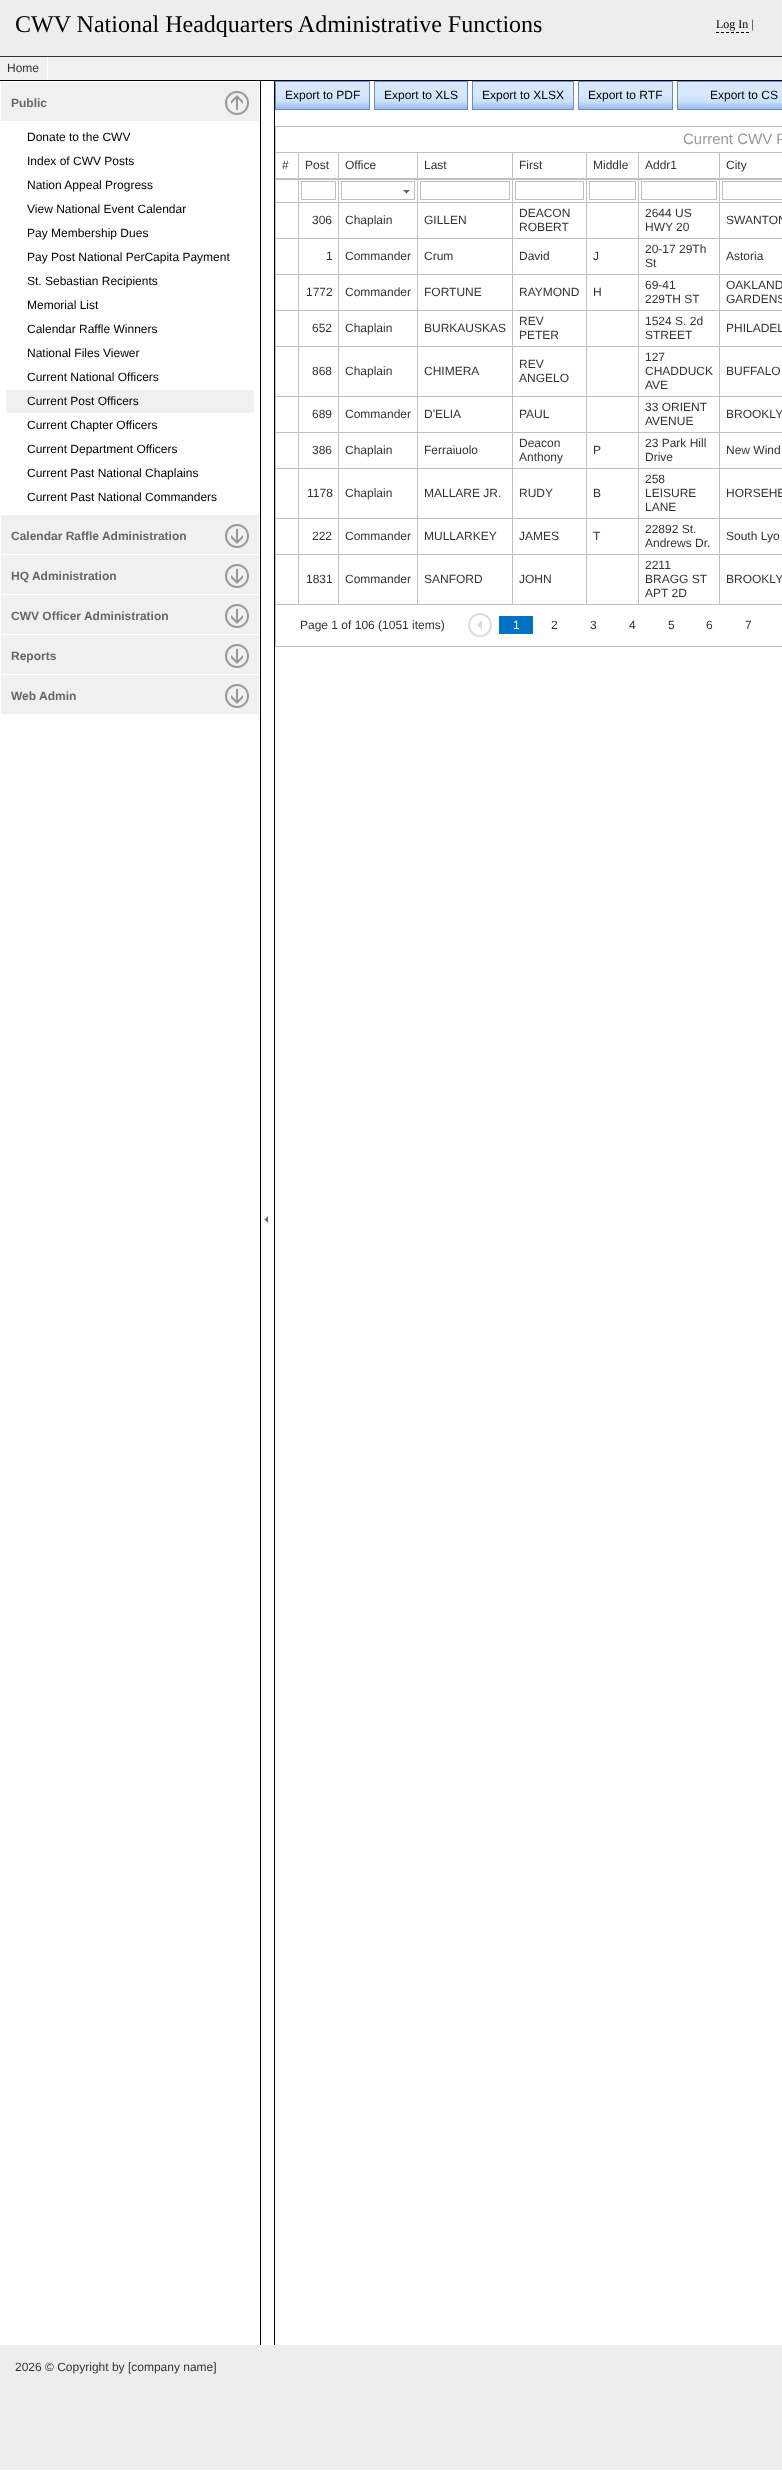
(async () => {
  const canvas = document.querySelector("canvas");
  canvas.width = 782;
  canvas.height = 2485;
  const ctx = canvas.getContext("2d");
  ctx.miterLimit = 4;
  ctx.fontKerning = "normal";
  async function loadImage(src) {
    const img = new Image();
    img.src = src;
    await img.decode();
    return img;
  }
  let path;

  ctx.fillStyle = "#ffffff";
  ctx.fillRect(0, 0, 782, 2485);
  ctx.fillStyle = "#ededed";
  ctx.fillRect(0, 0, 782, 56);
  ctx.fillStyle = "#000000";
  ctx.fillRect(0, 80, 782, 1);
  path = new Path2D("M716 32.5H749");
  ctx.strokeStyle = "#000000";
  ctx.setLineDash([3, 2]);
  ctx.stroke(path);
  for (const [x, y, w, h, color] of [
    [0, 57, 782, 23, "#f0f0f0"],
    [0, 56, 782, 1, "#333333"],
    [47, 57, 1, 23, "#ffffff"],
    [1, 82, 258, 39, "#f0f0f0"],
  ]) {
    ctx.fillStyle = color;
    ctx.fillRect(x, y, w, h);
  }
  ctx.drawImage(await loadImage("img/1.png"), 225, 91, 24, 24);
  ctx.fillRect(6, 390, 248, 23);
  ctx.fillRect(1, 515, 258, 39);
  ctx.drawImage(await loadImage("img/2.png"), 225, 524, 24, 24);
  ctx.fillRect(1, 555, 258, 39);
  ctx.drawImage(await loadImage("img/2.png"), 225, 564, 24, 24);
  ctx.fillRect(1, 595, 258, 39);
  ctx.drawImage(await loadImage("img/2.png"), 225, 604, 24, 24);
  ctx.fillRect(1, 635, 258, 39);
  ctx.drawImage(await loadImage("img/2.png"), 225, 644, 24, 24);
  ctx.fillRect(1, 675, 258, 39);
  ctx.drawImage(await loadImage("img/2.png"), 225, 684, 24, 24);
  ctx.fillStyle = "#000000";
  ctx.fillRect(274, 81, 1, 2264);
  ctx.fillRect(260, 81, 1, 2264);
  ctx.drawImage(await loadImage("img/3.png"), 264, 1216, 4, 7);
  ctx.fillStyle = "#d7e8fd";
  ctx.fillRect(276, 82, 93, 14);
  ctx.drawImage(await loadImage("img/4.png"), 276, 96, 93, 13);
  ctx.strokeStyle = "#6a8ccb";
  ctx.setLineDash([]);
  ctx.strokeRect(275.5, 81.5, 94, 28);
  ctx.fillRect(375, 82, 92, 14);
  ctx.drawImage(await loadImage("img/5.png"), 375, 96, 92, 13);
  ctx.strokeRect(374.5, 81.5, 93, 28);
  ctx.fillRect(473, 82, 100, 14);
  ctx.drawImage(await loadImage("img/6.png"), 473, 96, 100, 13);
  ctx.strokeRect(472.5, 81.5, 101, 28);
  ctx.fillRect(579, 82, 93, 14);
  ctx.drawImage(await loadImage("img/4.png"), 579, 96, 93, 13);
  ctx.strokeRect(578.5, 81.5, 94, 28);
  ctx.fillRect(678, 82, 104, 14);
  ctx.drawImage(await loadImage("img/7.png"), 678, 96, 104, 13);
  ctx.strokeRect(677.5, 81.5, 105, 28);
  ctx.strokeStyle = "#c0c0c0";
  ctx.strokeRect(275.5, 126.5, 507, 520);
  for (const [x, y, w, h, color] of [
    [276, 152, 506, 1, "#c0c0c0"],
    [276, 179, 506, 1, "#c0c0c0"],
    [298, 153, 1, 452, "#c0c0c0"],
    [276, 178, 23, 1, "#c0c0c0"],
    [338, 153, 1, 452, "#c0c0c0"],
    [299, 178, 40, 1, "#c0c0c0"],
    [417, 153, 1, 452, "#c0c0c0"],
    [339, 178, 79, 1, "#c0c0c0"],
    [512, 153, 1, 452, "#c0c0c0"],
    [418, 178, 95, 1, "#c0c0c0"],
    [586, 153, 1, 452, "#c0c0c0"],
    [513, 178, 74, 1, "#c0c0c0"],
    [638, 153, 1, 452, "#c0c0c0"],
    [587, 178, 52, 1, "#c0c0c0"],
    [719, 153, 1, 452, "#c0c0c0"],
    [639, 178, 143, 1, "#c0c0c0"],
  ]) {
    ctx.fillStyle = color;
    ctx.fillRect(x, y, w, h);
  }
  ctx.strokeRect(301.5, 181.5, 34, 18);
  ctx.strokeRect(341.5, 181.5, 73, 18);
  ctx.drawImage(await loadImage("img/8.png"), 403, 190, 7, 4);
  ctx.strokeRect(420.5, 181.5, 89, 18);
  ctx.strokeRect(515.5, 181.5, 68, 18);
  ctx.strokeRect(589.5, 181.5, 46, 18);
  ctx.strokeRect(641.5, 181.5, 75, 18);
  ctx.strokeRect(722.5, 181.5, 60, 18);
  for (const [x, y, w, h, color] of [
    [276, 202, 506, 1, "#c0c0c0"],
    [276, 238, 506, 1, "#c0c0c0"],
    [276, 274, 506, 1, "#c0c0c0"],
    [276, 310, 506, 1, "#c0c0c0"],
    [276, 346, 506, 1, "#c0c0c0"],
    [276, 396, 506, 1, "#c0c0c0"],
    [276, 432, 506, 1, "#c0c0c0"],
    [276, 468, 506, 1, "#c0c0c0"],
    [276, 518, 506, 1, "#c0c0c0"],
    [276, 554, 506, 1, "#c0c0c0"],
    [276, 604, 506, 1, "#c0c0c0"],
  ]) {
    ctx.fillStyle = color;
    ctx.fillRect(x, y, w, h);
  }
  ctx.drawImage(await loadImage("img/9.png"), 468, 613, 24, 24);
  ctx.fillStyle = "#0072c6";
  ctx.fillRect(499, 616, 34, 18);
  ctx.fillStyle = "#ededed";
  ctx.fillRect(0, 2345, 782, 125);
  ctx.font = "24px Liberation Serif";
  ctx.fillStyle = "#000000";
  ctx.fillText("CWV National Headquarters Administrative Functions", 15, 32);
  ctx.font = "12px Liberation Serif";
  ctx.fillText("Log In |", 716, 28);
  ctx.font = "12px Liberation Sans";
  ctx.fillStyle = "#333333";
  ctx.fillText("Home", 7, 72);
  ctx.font = "bold 12px Liberation Sans";
  ctx.fillStyle = "#666666";
  ctx.fillText("Public", 11, 107);
  ctx.font = "12px Liberation Sans";
  ctx.fillStyle = "#000000";
  for (const [text, x, y] of [
    ["Donate to the CWV", 27, 141],
    ["Index of CWV Posts", 27, 165],
    ["Nation Appeal Progress", 27, 189],
    ["View National Event Calendar", 27, 213],
    ["Pay Membership Dues", 27, 237],
    ["Pay Post National PerCapita Payment", 27, 261],
    ["St. Sebastian Recipients", 27, 285],
    ["Memorial List", 27, 309],
    ["Calendar Raffle Winners", 27, 333],
    ["National Files Viewer", 27, 357],
    ["Current National Officers", 27, 381],
    ["Current Post Officers", 27, 405],
    ["Current Chapter Officers", 27, 429],
    ["Current Department Officers", 27, 453],
    ["Current Past National Chaplains", 27, 477],
    ["Current Past National Commanders", 27, 501],
  ]) {
    ctx.fillText(text, x, y);
  }
  ctx.font = "bold 12px Liberation Sans";
  ctx.fillStyle = "#666666";
  for (const [text, x, y] of [
    ["Calendar Raffle Administration", 11, 540],
    ["HQ Administration", 11, 580],
    ["CWV Officer Administration", 11, 620],
    ["Reports", 11, 660],
    ["Web Admin", 11, 700],
  ]) {
    ctx.fillText(text, x, y);
  }
  ctx.font = "12px Liberation Sans";
  ctx.fillStyle = "#000000";
  for (const [text, x, y] of [
    ["Export to PDF", 285, 99],
    ["Export to XLS", 384, 99],
    ["Export to XLSX", 482, 99],
    ["Export to RTF", 588, 99],
    ["Export to CS", 710, 99],
  ]) {
    ctx.fillText(text, x, y);
  }
  ctx.font = "15px Liberation Sans";
  ctx.fillStyle = "#999999";
  ctx.fillText("Current CWV P", 683, 144);
  ctx.font = "12px Liberation Sans";
  ctx.fillStyle = "#333333";
  for (const [text, x, y] of [
    ["#", 282, 169],
    ["Post", 305, 169],
    ["Office", 345, 169],
    ["Last", 424, 169],
    ["First", 519, 169],
    ["Middle", 593, 169],
    ["Addr1", 645, 169],
    ["City", 726, 169],
    ["306", 312, 224],
    ["Chaplain", 345, 224],
    ["GILLEN", 424, 224],
    ["DEACON", 519, 217],
    ["ROBERT", 519, 231],
    ["2644 US", 645, 217],
    ["HWY 20", 645, 231],
    ["SWANTON", 726, 224],
    ["1", 326, 260],
    ["Commander", 345, 260],
    ["Crum", 424, 260],
    ["David", 519, 260],
    ["J", 593, 260],
    ["20-17 29Th", 645, 253],
    ["St", 645, 267],
    ["Astoria", 726, 260],
    ["1772", 306, 296],
    ["Commander", 345, 296],
    ["FORTUNE", 424, 296],
    ["RAYMOND", 519, 296],
    ["H", 593, 296],
    ["69-41", 645, 289],
    ["229TH ST", 645, 303],
    ["OAKLAND", 726, 289],
    ["GARDENS", 726, 303],
    ["652", 312, 332],
    ["Chaplain", 345, 332],
    ["BURKAUSKAS", 424, 332],
    ["REV", 519, 325],
    ["PETER", 519, 339],
    ["1524 S. 2d", 645, 325],
    ["STREET", 645, 339],
    ["PHILADEL", 726, 332],
    ["868", 312, 375],
    ["Chaplain", 345, 375],
    ["CHIMERA", 424, 375],
    ["REV", 519, 368],
    ["ANGELO", 519, 382],
    ["127", 645, 361],
    ["CHADDUCK", 645, 375],
    ["AVE", 645, 389],
    ["BUFFALO", 726, 375],
    ["689", 312, 418],
    ["Commander", 345, 418],
    ["D'ELIA", 424, 418],
    ["PAUL", 519, 418],
    ["33 ORIENT", 645, 411],
    ["AVENUE", 645, 425],
    ["BROOKLY", 726, 418],
    ["386", 312, 454],
    ["Chaplain", 345, 454],
    ["Ferraiuolo", 424, 454],
    ["Deacon", 519, 447],
    ["Anthony", 519, 461],
    ["P", 593, 454],
    ["23 Park Hill", 645, 447],
    ["Drive", 645, 461],
    ["New Wind", 726, 454],
    ["1178", 307, 497],
    ["Chaplain", 345, 497],
    ["MALLARE JR.", 424, 497],
    ["RUDY", 519, 497],
    ["B", 593, 497],
    ["258", 645, 483],
    ["LEISURE", 645, 497],
    ["LANE", 645, 511],
    ["HORSEHE", 726, 497],
    ["222", 312, 540],
    ["Commander", 345, 540],
    ["MULLARKEY", 424, 540],
    ["JAMES", 519, 540],
    ["T", 593, 540],
    ["22892 St.", 645, 533],
    ["Andrews Dr.", 645, 547],
    ["South Lyo", 726, 540],
    ["1831", 306, 583],
    ["Commander", 345, 583],
    ["SANFORD", 424, 583],
    ["JOHN", 519, 583],
    ["2211", 645, 569],
    ["BRAGG ST", 645, 583],
    ["APT 2D", 645, 597],
    ["BROOKLY", 726, 583],
    ["Page 1 of 106 (1051 items)", 300, 629],
  ]) {
    ctx.fillText(text, x, y);
  }
  ctx.fillStyle = "#ffffff";
  ctx.fillText("1", 513, 629);
  ctx.fillStyle = "#333333";
  for (const [text, x, y] of [
    ["2", 551, 629],
    ["3", 590, 629],
    ["4", 629, 629],
    ["5", 668, 629],
    ["6", 706, 629],
    ["7", 745, 629],
    ["2026 © Copyright by [company name]", 15, 2371],
  ]) {
    ctx.fillText(text, x, y);
  }
})();
